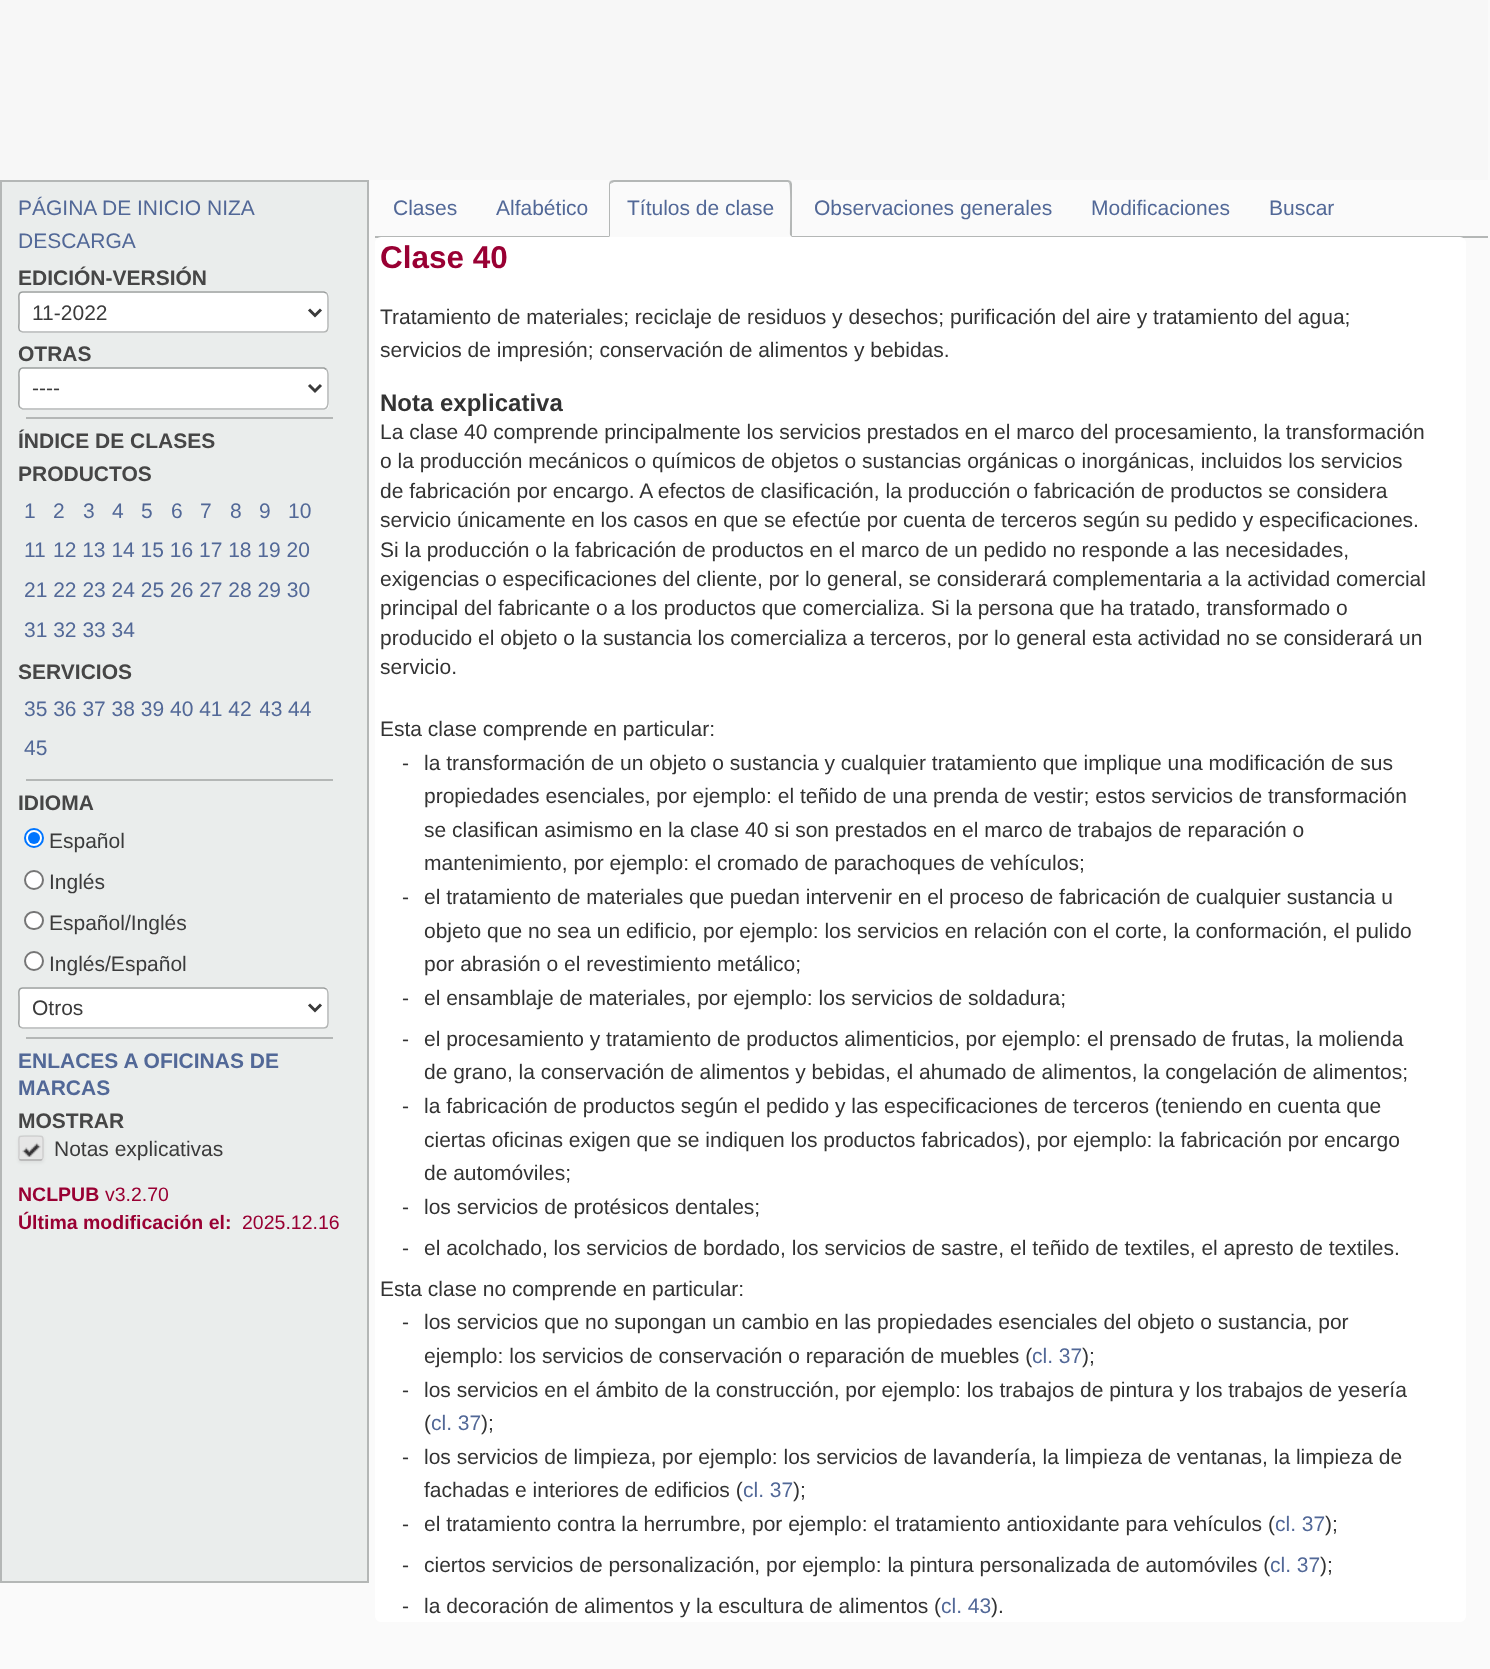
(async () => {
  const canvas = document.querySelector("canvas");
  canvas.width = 1490;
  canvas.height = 1669;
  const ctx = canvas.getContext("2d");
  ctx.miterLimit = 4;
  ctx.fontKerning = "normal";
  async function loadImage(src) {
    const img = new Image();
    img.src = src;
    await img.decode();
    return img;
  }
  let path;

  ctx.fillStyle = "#fafafa";
  ctx.fillRect(0, 0, 1490, 1669);
  ctx.fillStyle = "#f7f7f7";
  ctx.fillRect(0, 0, 1488, 180);
  ctx.fillStyle = "#eaedec";
  ctx.beginPath();
  ctx.rect(1, 181, 367, 1401);
  ctx.fill();
  ctx.strokeStyle = "#b4b7b6";
  ctx.lineWidth = 2;
  ctx.stroke();
  ctx.fillStyle = "#ffffff";
  ctx.beginPath();
  ctx.roundRect(18, 291, 311, 42, 5);
  ctx.fill();
  path = new Path2D("M326.5 293C328.5 295 328 299 328 301V323C328 326 329 332 324 332H22.5L20 331");
  ctx.lineWidth = 1.5;
  ctx.stroke(path);
  path = new Path2D("M20 331C18 329 19 325 19 323V301C19 298 17.5 292 22.5 292H324L326.5 293");
  ctx.strokeStyle = "#9a9e9d";
  ctx.stroke(path);
  path = new Path2D("M309 309.5L315 315.5L321 309.5");
  ctx.strokeStyle = "#3b3b3b";
  ctx.lineWidth = 3;
  ctx.stroke(path);
  ctx.beginPath();
  ctx.roundRect(18, 368, 311, 42, 5);
  ctx.fill();
  path = new Path2D("M326.5 369.5C328.5 371.5 328 375.5 328 377.5V399.5C328 402.5 329 408.5 324 409H22.5L20 407.5");
  ctx.strokeStyle = "#b4b7b6";
  ctx.lineWidth = 1.5;
  ctx.stroke(path);
  path = new Path2D("M20 407.5C18 405.5 19 401.5 19 399.5V377.5C19 374.5 17.5 368.5 22.5 368H324L326.5 369.5");
  ctx.strokeStyle = "#9a9e9d";
  ctx.stroke(path);
  path = new Path2D("M309 385L315 391L321 385");
  ctx.strokeStyle = "#3b3b3b";
  ctx.lineWidth = 3;
  ctx.stroke(path);
  ctx.fillStyle = "#b4b7b6";
  ctx.fillRect(26, 417, 307, 2);
  ctx.fillRect(26, 779, 307, 2);
  ctx.fillStyle = "#ffffff";
  ctx.beginPath();
  ctx.arc(34, 838, 9, 0, Math.PI * 2);
  ctx.fill();
  ctx.strokeStyle = "#0075ff";
  ctx.lineWidth = 2;
  ctx.stroke();
  ctx.fillStyle = "#0075ff";
  ctx.beginPath();
  ctx.arc(34, 838, 6, 0, Math.PI * 2);
  ctx.fill();
  ctx.fillStyle = "#ffffff";
  ctx.beginPath();
  ctx.arc(34, 880, 9, 0, Math.PI * 2);
  ctx.fill();
  ctx.strokeStyle = "#767676";
  ctx.stroke();
  ctx.beginPath();
  ctx.roundRect(25, 912, 18, 17, 8.5);
  ctx.fill();
  ctx.stroke();
  ctx.beginPath();
  ctx.arc(34, 961, 9, 0, Math.PI * 2);
  ctx.fill();
  ctx.stroke();
  ctx.beginPath();
  ctx.roundRect(18, 987, 311, 42, 5);
  ctx.fill();
  path = new Path2D("M326.5 989C328.5 991 328 995 328 997V1019C328 1022 329 1028 324 1028H22.5L20 1027");
  ctx.strokeStyle = "#b4b7b6";
  ctx.lineWidth = 1.5;
  ctx.stroke(path);
  path = new Path2D("M20 1027C18 1025 19 1021 19 1019V997C19 994 17.5 988 22.5 988H324L326.5 989");
  ctx.strokeStyle = "#9a9e9d";
  ctx.stroke(path);
  path = new Path2D("M309 1004.5L315 1010.5L321 1004.5");
  ctx.strokeStyle = "#3b3b3b";
  ctx.lineWidth = 3;
  ctx.stroke(path);
  ctx.fillStyle = "#b4b7b6";
  ctx.fillRect(26, 1037, 307, 2);
  ctx.fillStyle = "rgba(0, 0, 0, 0.05)";
  ctx.filter = "blur(1.5px)";
  ctx.beginPath();
  ctx.roundRect(18, 1137, 26, 26, 3);
  ctx.fill();
  ctx.filter = "none";
  ctx.fillStyle = "#e6e6e6";
  ctx.beginPath();
  ctx.roundRect(18, 1136, 26, 25, 3);
  ctx.fill();
  path = new Path2D("M42 1159.5C41.5 1160 41 1160 40.5 1160H21C20.5 1160 20 1160 19.5 1159.5");
  ctx.strokeStyle = "#adadad";
  ctx.lineWidth = 1.5;
  ctx.stroke(path);
  path = new Path2D("M19.5 1159.5C18 1158.5 19 1156 19 1155V1148C19 1134 16.5 1136 31 1136C45 1136 43 1134 43 1148V1155C43 1156 43.5 1158.5 42 1159.5");
  ctx.strokeStyle = "rgba(0, 0, 0, 0.1)";
  ctx.stroke(path);
  ctx.drawImage(await loadImage("img/1.png"), 22, 1142, 19, 15);
  ctx.fillStyle = "#b4b7b6";
  ctx.fillRect(375, 236, 1113, 2);
  ctx.fillStyle = "#fafafa";
  ctx.beginPath();
  ctx.roundRect(609, 180, 183, 57, [5, 5, 0, 0]);
  ctx.fill();
  ctx.fillStyle = "#b4b7b6";
  path = new Path2D("M614 180C612 180 611 181 610 181L612 183L614 182H788L789 183L791 181L788 180Z");
  ctx.fill(path);
  path = new Path2D("M792 237V184L791 181L789 183C791 184 790 229 790 235Z");
  ctx.fill(path);
  path = new Path2D("M609 237L610 236V184L612 183L610 181L609 184Z");
  ctx.fill(path);
  ctx.fillStyle = "#ffffff";
  ctx.beginPath();
  ctx.roundRect(375, 237, 1091, 1385, 6);
  ctx.fill();
  ctx.font = "21px Liberation Sans";
  ctx.fillStyle = "#526897";
  ctx.fillText("PÁGINA DE INICIO NIZA", 18, 215);
  ctx.fillText("DESCARGA", 18, 248);
  ctx.font = "bold 21px Liberation Sans";
  ctx.fillStyle = "#464646";
  ctx.fillText("EDICIÓN-VERSIÓN", 18, 285);
  ctx.font = "21px Liberation Sans";
  ctx.fillStyle = "#3b3b3b";
  ctx.fillText("11-2022", 32, 320);
  ctx.font = "bold 21px Liberation Sans";
  ctx.fillStyle = "#464646";
  ctx.fillText("OTRAS", 18, 361);
  ctx.font = "21px Liberation Sans";
  ctx.fillStyle = "#3b3b3b";
  ctx.fillText("----", 32, 395);
  ctx.font = "bold 21px Liberation Sans";
  ctx.fillStyle = "#464646";
  ctx.fillText("ÍNDICE DE CLASES", 18, 448);
  ctx.fillText("PRODUCTOS", 18, 481);
  ctx.font = "21px Liberation Sans";
  ctx.fillStyle = "#526897";
  for (const [text, x, y] of [
    ["1", 24, 518],
    ["2", 53, 518],
    ["3", 83, 518],
    ["4", 112, 518],
    ["5", 141, 518],
    ["6", 171, 518],
    ["7", 200, 518],
    ["8", 230, 518],
    ["9", 259, 518],
    ["10", 288, 518],
    ["11", 24, 557],
    ["12 13 14 15 16 17 18 19 20", 53, 557],
    ["21 22 23 24 25 26 27 28 29 30", 24, 597],
    ["31 32 33 34", 24, 637],
  ]) {
    ctx.fillText(text, x, y);
  }
  ctx.font = "bold 21px Liberation Sans";
  ctx.fillStyle = "#464646";
  ctx.fillText("SERVICIOS", 18, 679);
  ctx.font = "21px Liberation Sans";
  ctx.fillStyle = "#526897";
  ctx.fillText("35 36 37 38 39 40 41 42", 24, 716);
  ctx.save();
  ctx.beginPath();
  ctx.rect(260, 692, 22, 34);
  ctx.clip();
  ctx.fillText("43", 259, 716);
  ctx.restore();
  ctx.fillText("44", 288, 716);
  ctx.fillText("45", 24, 755);
  ctx.font = "bold 21px Liberation Sans";
  ctx.fillStyle = "#464646";
  ctx.fillText("IDIOMA", 18, 810);
  ctx.font = "21px Liberation Sans";
  ctx.fillStyle = "#3b3b3b";
  for (const [text, x, y] of [
    ["Español", 49, 848],
    ["Inglés", 49, 889],
    ["Español/Inglés", 49, 930],
    ["Inglés/Español", 49, 971],
    ["Otros", 32, 1015],
  ]) {
    ctx.fillText(text, x, y);
  }
  ctx.font = "bold 21px Liberation Sans";
  ctx.fillStyle = "#526897";
  ctx.fillText("ENLACES A OFICINAS DE", 18, 1068);
  ctx.fillText("MARCAS", 18, 1095);
  ctx.fillStyle = "#464646";
  ctx.fillText("MOSTRAR", 18, 1128);
  ctx.font = "21px Liberation Sans";
  ctx.fillStyle = "#3b3b3b";
  ctx.fillText("Notas explicativas", 54, 1156);
  ctx.font = "bold 19.5px Liberation Sans";
  ctx.fillStyle = "#990033";
  ctx.fillText("NCLPUB", 18, 1201);
  ctx.font = "19.5px Liberation Sans";
  ctx.fillText("v3.2.70", 105, 1201);
  ctx.font = "bold 19.5px Liberation Sans";
  ctx.fillText("Última modificación el:", 18, 1229);
  ctx.font = "19.5px Liberation Sans";
  ctx.fillText("2025.12.16", 242, 1229);
  ctx.font = "21px Liberation Sans";
  ctx.fillStyle = "#526897";
  for (const [text, x, y] of [
    ["Clases", 393, 215],
    ["Alfabético", 496, 215],
    ["Títulos de clase", 627, 215],
    ["Observaciones generales", 814, 215],
    ["Modificaciones", 1091, 215],
    ["Buscar", 1269, 215],
  ]) {
    ctx.fillText(text, x, y);
  }
  ctx.font = "bold 31.5px Liberation Sans";
  ctx.fillStyle = "#990033";
  ctx.fillText("Clase 40", 380, 268);
  ctx.font = "21px Liberation Sans";
  ctx.fillStyle = "#333333";
  ctx.fillText("Tratamiento de materiales; reciclaje de residuos y desechos; purificación del aire y tratamiento del agua;", 380, 324);
  ctx.fillText("servicios de impresión; conservación de alimentos y bebidas.", 380, 357);
  ctx.font = "bold 24px Liberation Sans";
  ctx.fillText("Nota explicativa", 380, 411);
  ctx.font = "21px Liberation Sans";
  for (const [text, x, y] of [
    ["La clase 40 comprende principalmente los servicios prestados en el marco del procesamiento, la transformación", 380, 439],
    ["o la producción mecánicos o químicos de objetos o sustancias orgánicas o inorgánicas, incluidos los servicios", 380, 468],
    ["de fabricación por encargo. A efectos de clasificación, la producción o fabricación de productos se considera", 380, 498],
    ["servicio únicamente en los casos en que se efectúe por cuenta de terceros según su pedido y especificaciones.", 380, 527],
    ["Si la producción o la fabricación de productos en el marco de un pedido no responde a las necesidades,", 380, 557],
    ["exigencias o especificaciones del cliente, por lo general, se considerará complementaria a la actividad comercial", 380, 586],
    ["principal del fabricante o a los productos que comercializa. Si la persona que ha tratado, transformado o", 380, 615],
    ["producido el objeto o la sustancia los comercializa a terceros, por lo general esta actividad no se considerará un", 380, 645],
    ["servicio.", 380, 674],
    ["Esta clase comprende en particular:", 380, 736],
    ["-", 402, 770],
    ["la transformación de un objeto o sustancia y cualquier tratamiento que implique una modificación de sus", 424, 770],
    ["propiedades esenciales, por ejemplo: el teñido de una prenda de vestir; estos servicios de transformación", 424, 803],
    ["se clasifican asimismo en la clase 40 si son prestados en el marco de trabajos de reparación o", 424, 837],
    ["mantenimiento, por ejemplo: el cromado de parachoques de vehículos;", 424, 870],
    ["-", 402, 904],
    ["el tratamiento de materiales que puedan intervenir en el proceso de fabricación de cualquier sustancia u", 424, 904],
    ["objeto que no sea un edificio, por ejemplo: los servicios en relación con el corte, la conformación, el pulido", 424, 938],
    ["por abrasión o el revestimiento metálico;", 424, 971],
    ["-", 402, 1005],
    ["el ensamblaje de materiales, por ejemplo: los servicios de soldadura;", 424, 1005],
    ["-", 402, 1046],
    ["el procesamiento y tratamiento de productos alimenticios, por ejemplo: el prensado de frutas, la molienda", 424, 1046],
    ["de grano, la conservación de alimentos y bebidas, el ahumado de alimentos, la congelación de alimentos;", 424, 1079],
    ["-", 402, 1113],
    ["la fabricación de productos según el pedido y las especificaciones de terceros (teniendo en cuenta que", 424, 1113],
    ["ciertas oficinas exigen que se indiquen los productos fabricados), por ejemplo: la fabricación por encargo", 424, 1147],
    ["de automóviles;", 424, 1180],
    ["-", 402, 1214],
    ["los servicios de protésicos dentales;", 424, 1214],
    ["-", 402, 1255],
    ["el acolchado, los servicios de bordado, los servicios de sastre, el teñido de textiles, el apresto de textiles.", 424, 1255],
    ["Esta clase no comprende en particular:", 380, 1296],
    ["-", 402, 1329],
    ["los servicios que no supongan un cambio en las propiedades esenciales del objeto o sustancia, por", 424, 1329],
    ["ejemplo: los servicios de conservación o reparación de muebles (", 424, 1363],
  ]) {
    ctx.fillText(text, x, y);
  }
  ctx.fillStyle = "#526897";
  ctx.fillText("cl. 37", 1032, 1363);
  ctx.fillStyle = "#333333";
  for (const [text, x, y] of [
    [");", 1082, 1363],
    ["-", 402, 1397],
    ["los servicios en el ámbito de la construcción, por ejemplo: los trabajos de pintura y los trabajos de yesería", 424, 1397],
    ["(", 424, 1430],
  ]) {
    ctx.fillText(text, x, y);
  }
  ctx.fillStyle = "#526897";
  ctx.fillText("cl. 37", 431, 1430);
  ctx.fillStyle = "#333333";
  for (const [text, x, y] of [
    [");", 481, 1430],
    ["-", 402, 1464],
    ["los servicios de limpieza, por ejemplo: los servicios de lavandería, la limpieza de ventanas, la limpieza de", 424, 1464],
    ["fachadas e interiores de edificios (", 424, 1497],
  ]) {
    ctx.fillText(text, x, y);
  }
  ctx.fillStyle = "#526897";
  ctx.fillText("cl. 37", 743, 1497);
  ctx.fillStyle = "#333333";
  for (const [text, x, y] of [
    [");", 793, 1497],
    ["-", 402, 1531],
    ["el tratamiento contra la herrumbre, por ejemplo: el tratamiento antioxidante para vehículos (", 424, 1531],
  ]) {
    ctx.fillText(text, x, y);
  }
  ctx.fillStyle = "#526897";
  ctx.fillText("cl. 37", 1275, 1531);
  ctx.fillStyle = "#333333";
  for (const [text, x, y] of [
    [");", 1325, 1531],
    ["-", 402, 1572],
    ["ciertos servicios de personalización, por ejemplo: la pintura personalizada de automóviles (", 424, 1572],
  ]) {
    ctx.fillText(text, x, y);
  }
  ctx.fillStyle = "#526897";
  ctx.fillText("cl. 37", 1270, 1572);
  ctx.fillStyle = "#333333";
  for (const [text, x, y] of [
    [");", 1320, 1572],
    ["-", 402, 1613],
    ["la decoración de alimentos y la escultura de alimentos (", 424, 1613],
  ]) {
    ctx.fillText(text, x, y);
  }
  ctx.fillStyle = "#526897";
  ctx.fillText("cl. 43", 941, 1613);
  ctx.fillStyle = "#333333";
  ctx.fillText(").", 991, 1613);
})();
